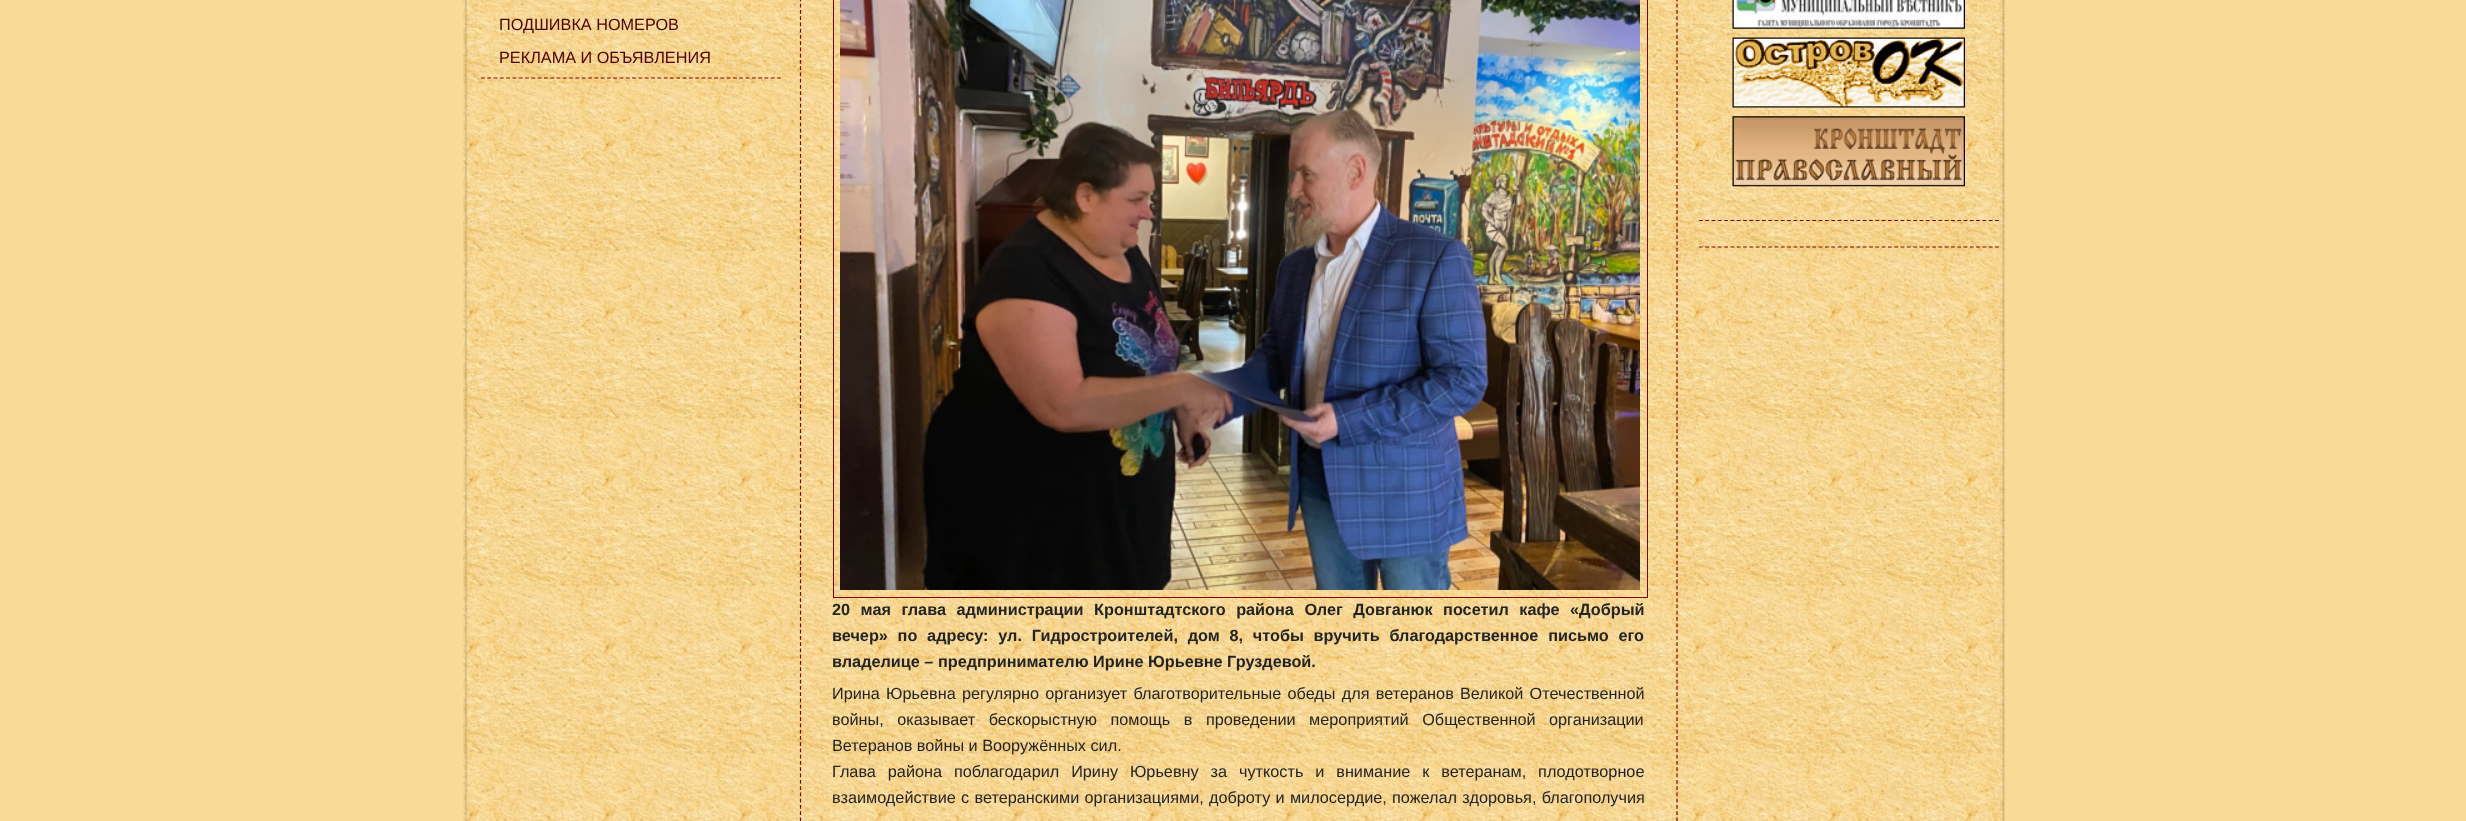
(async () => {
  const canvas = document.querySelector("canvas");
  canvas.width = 2466;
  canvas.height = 821;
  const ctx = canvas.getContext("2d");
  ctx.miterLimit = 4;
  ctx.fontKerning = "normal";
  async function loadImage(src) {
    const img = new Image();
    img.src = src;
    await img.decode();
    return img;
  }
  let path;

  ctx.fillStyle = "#f9da97";
  ctx.fillRect(0, 0, 2466, 821);
  ctx.drawImage(await loadImage("img/1.png"), 463, 0, 1542, 821);
  path = new Path2D("M481 78H781");
  ctx.strokeStyle = "#800000";
  ctx.lineWidth = 1.2;
  ctx.setLineDash([3.75, 2.55]);
  ctx.stroke(path);
  ctx.drawImage(await loadImage("img/2.png"), 1732, 0, 233, 29);
  ctx.drawImage(await loadImage("img/3.png"), 1732, 37, 233, 71);
  ctx.drawImage(await loadImage("img/4.png"), 1732, 116, 233, 71);
  path = new Path2D("M1699 220.5H1999");
  ctx.stroke(path);
  path = new Path2D("M1699 247H1999");
  ctx.stroke(path);
  path = new Path2D("M1677-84V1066");
  ctx.setLineDash([3.75, 2.51]);
  ctx.stroke(path);
  path = new Path2D("M800.5-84V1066");
  ctx.stroke(path);
  ctx.lineWidth = 1;
  ctx.setLineDash([]);
  ctx.strokeRect(833.5, -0.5, 814, 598);
  ctx.drawImage(await loadImage("img/5.png"), 840, 0, 800, 590);
  ctx.font = "16.25px Liberation Sans";
  ctx.fillStyle = "#510000";
  ctx.fillText("ПОДШИВКА НОМЕРОВ", 499, 30);
  ctx.fillText("РЕКЛАМА И ОБЪЯВЛЕНИЯ", 499, 63);
  ctx.wordSpacing = "6px";
  ctx.font = "bold 16.25px Liberation Sans";
  ctx.fillStyle = "#232323";
  ctx.fillText("20 мая глава администрации Кронштадтского района Олег Довганюк посетил кафе «Добрый", 832, 615);
  ctx.wordSpacing = "5.25px";
  ctx.fillText("вечер» по адресу: ул. Гидростроителей, дом 8, чтобы вручить благодарственное письмо его", 832, 641);
  ctx.wordSpacing = "0px";
  ctx.fillText("владелице – предпринимателю Ирине Юрьевне Груздевой.", 832, 667);
  ctx.wordSpacing = "1.75px";
  ctx.font = "16.25px Liberation Sans";
  ctx.fillText("Ирина Юрьевна регулярно организует благотворительные обеды для ветеранов Великой Отечественной", 832, 699);
  ctx.wordSpacing = "9px";
  ctx.fillText("войны, оказывает бескорыстную помощь в проведении мероприятий Общественной организации", 832, 725);
  ctx.wordSpacing = "0px";
  ctx.fillText("Ветеранов войны и Вооружённых сил.", 832, 751);
  ctx.wordSpacing = "7.4px";
  ctx.fillText("Глава района поблагодарил Ирину Юрьевну за чуткость и внимание к ветеранам, плодотворное", 832, 777);
  ctx.wordSpacing = "0.75px";
  ctx.fillText("взаимодействие с ветеранскими организациями, доброту и милосердие, пожелал здоровья, благополучия", 832, 803);
})();
